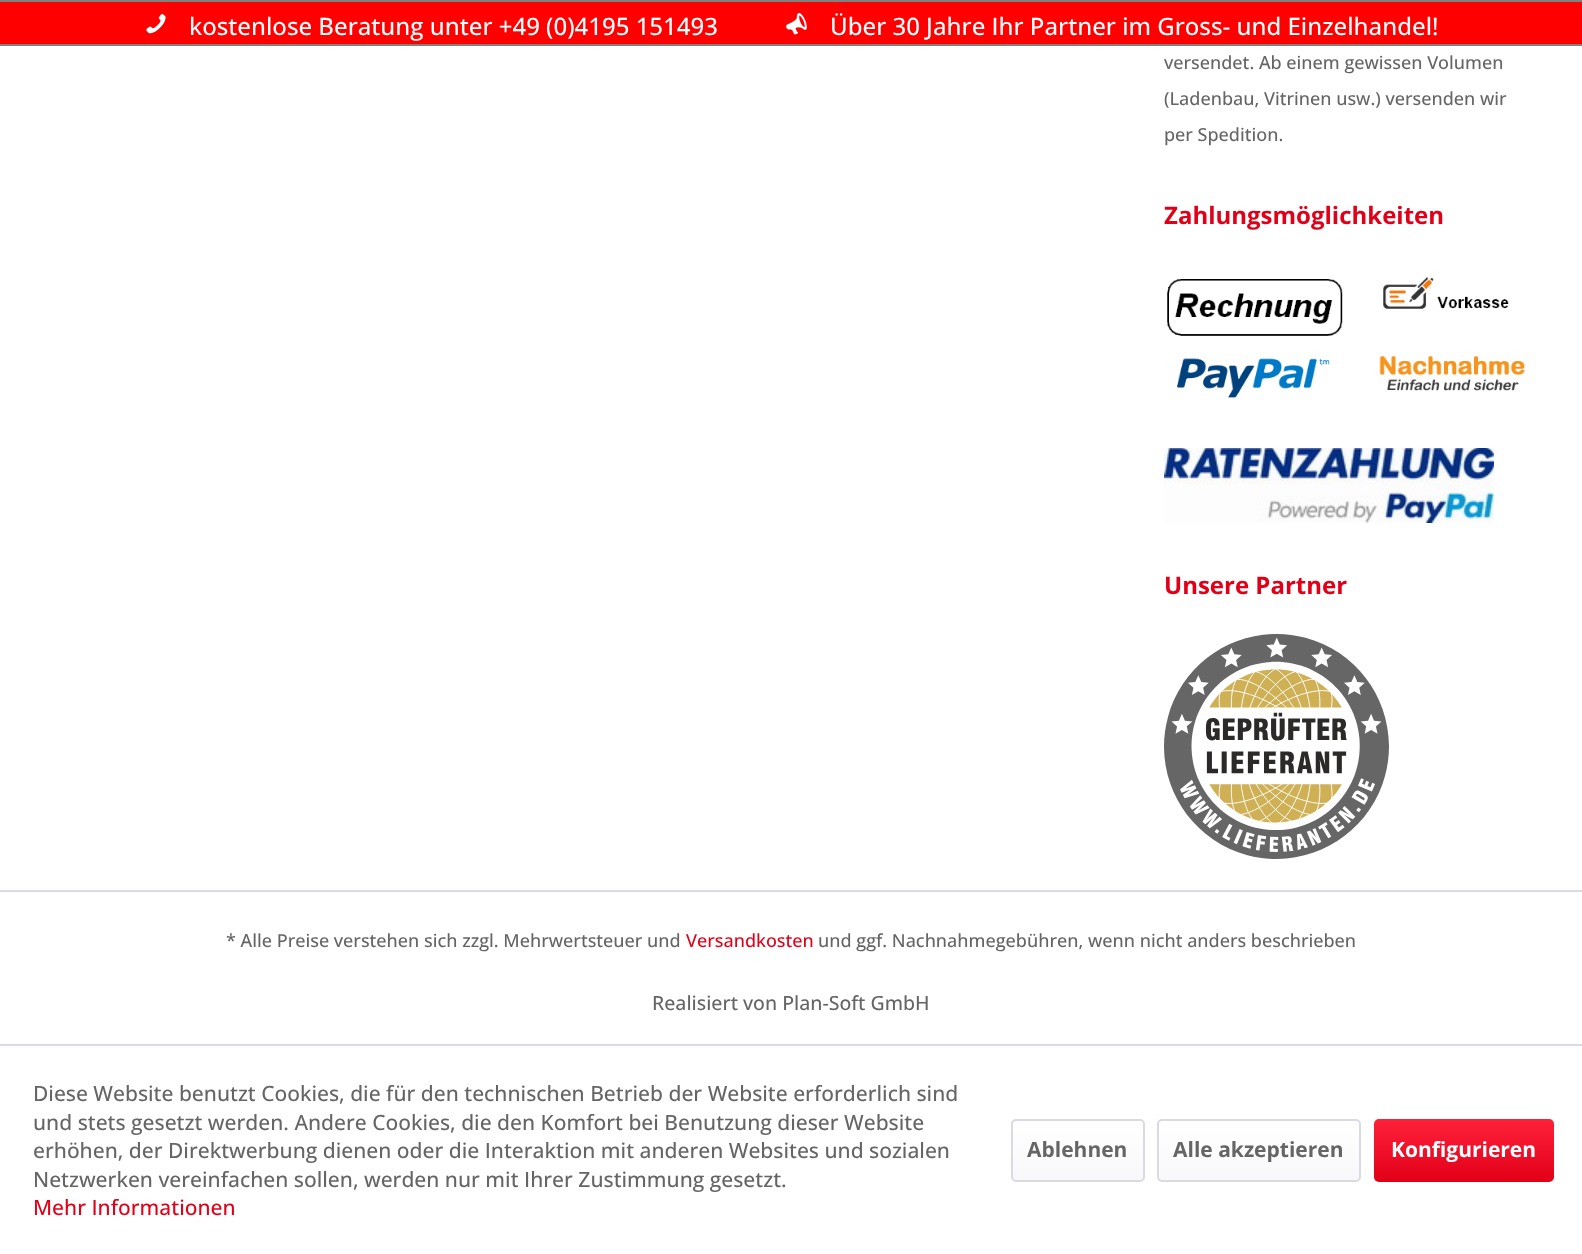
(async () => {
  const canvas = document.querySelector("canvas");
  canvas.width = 1582;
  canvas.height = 1254;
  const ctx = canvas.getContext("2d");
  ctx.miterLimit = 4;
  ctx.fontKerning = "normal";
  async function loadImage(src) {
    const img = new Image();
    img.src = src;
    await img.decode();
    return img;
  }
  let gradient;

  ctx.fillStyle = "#ffffff";
  ctx.fillRect(0, 0, 1582, 1254);
  for (const [x, y, w, h, color] of [
    [0, 2, 1582, 42, "#ff0000"],
    [0, 0, 1582, 2, "#808080"],
    [0, 44, 1582, 2, "#808080"],
  ]) {
    ctx.fillStyle = color;
    ctx.fillRect(x, y, w, h);
  }
  ctx.drawImage(await loadImage("img/1.png"), 146, 14, 20, 20);
  ctx.drawImage(await loadImage("img/2.png"), 786, 12, 21, 23);
  ctx.fillStyle = "#dadae5";
  ctx.fillRect(0, 890, 1582, 2);
  ctx.drawImage(await loadImage("img/3.png"), 1167, 277, 358, 121);
  ctx.drawImage(await loadImage("img/4.png"), 1164, 448, 330, 75);
  ctx.drawImage(await loadImage("img/5.png"), 1164, 634, 225, 225);
  ctx.fillRect(0, 1044, 1582, 2);
  gradient = ctx.createLinearGradient(1078, 1121, 1078, 1181);
  gradient.addColorStop(0, "#ffffff");
  gradient.addColorStop(1, "#f8f8fa");
  ctx.fillStyle = gradient;
  ctx.beginPath();
  ctx.roundRect(1013, 1121, 130, 60, 3);
  ctx.fill();
  ctx.beginPath();
  ctx.roundRect(1012, 1120, 132, 61, 4);
  ctx.strokeStyle = "#dadae5";
  ctx.lineWidth = 2;
  ctx.stroke();
  gradient = ctx.createLinearGradient(1259, 1121, 1259, 1181);
  gradient.addColorStop(0, "#ffffff");
  gradient.addColorStop(1, "#f8f8fa");
  ctx.fillStyle = gradient;
  ctx.beginPath();
  ctx.roundRect(1158, 1121, 201, 60, 3);
  ctx.fill();
  ctx.beginPath();
  ctx.roundRect(1158, 1120, 202, 61, 4);
  ctx.stroke();
  gradient = ctx.createLinearGradient(1464, 1119, 1464, 1182);
  gradient.addColorStop(0, "#ff2039");
  gradient.addColorStop(1, "#e20019");
  ctx.fillStyle = gradient;
  ctx.beginPath();
  ctx.roundRect(1374, 1119, 180, 63, 5);
  ctx.fill();
  ctx.font = "500 24px Open Sans";
  ctx.fillStyle = "#ffffff";
  ctx.fillText("kostenlose Beratung unter +49 (0)4195 151493", 189, 35);
  ctx.fillText("Über 30 Jahre Ihr Partner im Gross- und Einzelhandel!", 830, 35);
  ctx.font = "500 18px Open Sans";
  ctx.fillStyle = "#656565";
  for (const [text, x, y] of [
    ["versendet. Ab einem gewissen Volumen", 1164, 69],
    ["(Ladenbau, Vitrinen usw.) versenden wir", 1164, 105],
    ["per Spedition.", 1164, 141],
  ]) {
    ctx.fillText(text, x, y);
  }
  ctx.font = "bold 24px Open Sans";
  ctx.fillStyle = "#e20019";
  ctx.fillText("Zahlungsmöglichkeiten", 1164, 224);
  ctx.fillText("Unsere Partner", 1164, 594);
  ctx.font = "500 18px Open Sans";
  ctx.fillStyle = "#656565";
  ctx.fillText("* Alle Preise verstehen sich zzgl. Mehrwertsteuer und", 226, 947);
  ctx.fillStyle = "#e20019";
  ctx.fillText("Versandkosten", 686, 947);
  ctx.fillStyle = "#656565";
  ctx.fillText("und ggf. Nachnahmegebühren, wenn nicht anders beschrieben", 818, 947);
  ctx.font = "500 19.5px Open Sans";
  ctx.fillText("Realisiert von Plan-Soft GmbH", 652, 1010);
  ctx.font = "500 21px Open Sans";
  for (const [text, x, y] of [
    ["Diese Website benutzt Cookies, die für den technischen Betrieb der Website erforderlich sind", 33, 1101],
    ["und stets gesetzt werden. Andere Cookies, die den Komfort bei Benutzung dieser Website", 33, 1130],
    ["erhöhen, der Direktwerbung dienen oder die Interaktion mit anderen Websites und sozialen", 33, 1158],
    ["Netzwerken vereinfachen sollen, werden nur mit Ihrer Zustimmung gesetzt.", 33, 1187],
  ]) {
    ctx.fillText(text, x, y);
  }
  ctx.fillStyle = "#e20019";
  ctx.fillText("Mehr Informationen", 33, 1215);
  ctx.font = "bold 21px Open Sans";
  ctx.fillStyle = "#656565";
  ctx.fillText("Ablehnen", 1027, 1157);
  ctx.fillText("Alle akzeptieren", 1173, 1157);
  ctx.fillStyle = "#ffffff";
  ctx.fillText("Konfigurieren", 1391, 1157);
})();
